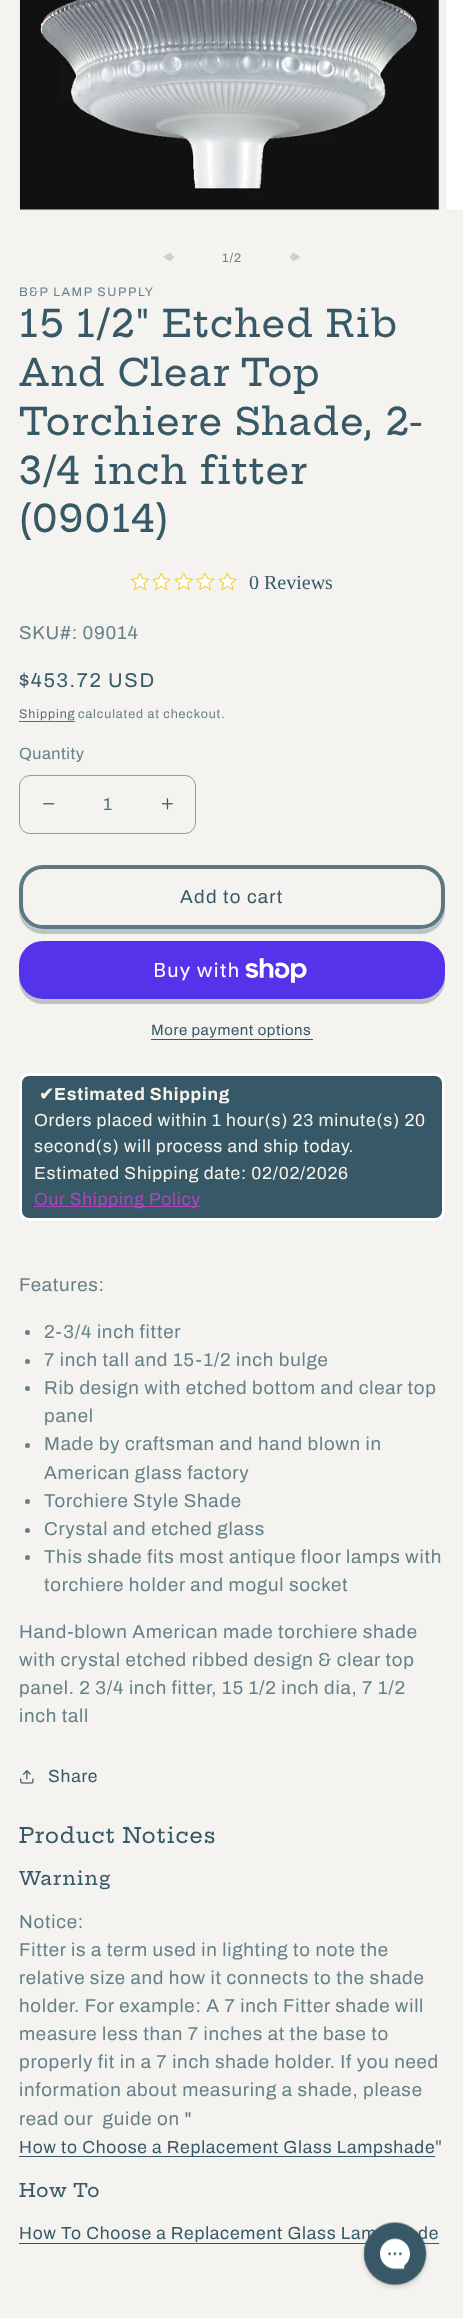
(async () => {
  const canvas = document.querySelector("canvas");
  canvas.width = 463;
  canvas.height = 2318;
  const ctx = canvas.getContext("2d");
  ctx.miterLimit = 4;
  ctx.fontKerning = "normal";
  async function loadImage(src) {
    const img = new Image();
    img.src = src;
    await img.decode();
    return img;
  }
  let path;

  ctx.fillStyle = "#f4f3ef";
  ctx.fillRect(0, 0, 463, 2318);
  ctx.strokeStyle = "#ebebe8";
  ctx.strokeRect(19.5, -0.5, 420, 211);
  ctx.drawImage(await loadImage("img/1.png"), 20, 0, 419, 210);
  ctx.strokeRect(445.5, -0.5, 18, 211);
  ctx.fillStyle = "#ffffff";
  ctx.fillRect(446, 0, 17, 210);
  ctx.fillStyle = "#cbd1cd";
  path = new Path2D("M170 261.5L174.5 257L170 252.5L163 257Z");
  ctx.fill(path);
  path = new Path2D("M293.5 252.5L289.5 257L293.5 261.5L300.5 257Z");
  ctx.fill(path);
  ctx.drawImage(await loadImage("img/2.png"), 131, 573, 18, 17);
  ctx.drawImage(await loadImage("img/3.png"), 153, 573, 17, 17);
  ctx.drawImage(await loadImage("img/4.png"), 175, 573, 18, 17);
  ctx.drawImage(await loadImage("img/2.png"), 196, 573, 18, 17);
  ctx.drawImage(await loadImage("img/5.png"), 219, 573, 17, 17);
  ctx.fillStyle = "#53707b";
  ctx.fillRect(19, 721, 56, 1);
  ctx.drawImage(await loadImage("img/6.png"), 43, 803, 12, 2);
  ctx.drawImage(await loadImage("img/7.png"), 161, 798, 13, 12);
  ctx.beginPath();
  ctx.roundRect(19.5, 775.5, 176, 58, 10.5);
  ctx.strokeStyle = "#8c9ea4";
  ctx.stroke();
  ctx.fillStyle = "#bbc5c6";
  path = new Path2D("M19 908V910C19 923 30 934 43 934H421C434 934 445 923 445 910V905C445 918 434 929 421 929H42C31 929 21 920 19 908Z");
  ctx.fill(path);
  ctx.fillStyle = "#f4f3ef";
  ctx.beginPath();
  ctx.roundRect(19, 865, 426, 64, 24);
  ctx.fill();
  ctx.beginPath();
  ctx.roundRect(21, 867, 422, 60, 22);
  ctx.strokeStyle = "#f4f3ef";
  ctx.lineWidth = 4;
  ctx.stroke();
  ctx.beginPath();
  ctx.roundRect(21, 867, 422, 60, 22);
  ctx.strokeStyle = "rgba(55, 89, 103, 0.8)";
  ctx.stroke();
  ctx.fillStyle = "#bbc5c6";
  path = new Path2D("M19 978V980C19 993 30 1004 43 1004H421C434 1004 445 993 445 980V975C445 988 434 999 421 999H42C31 999 21 990 19 978Z");
  ctx.fill(path);
  ctx.fillStyle = "#5433eb";
  ctx.beginPath();
  ctx.roundRect(19, 941, 426, 58, 24);
  ctx.fill();
  ctx.drawImage(await loadImage("img/8.png"), 245, 958, 62, 25);
  ctx.fillStyle = "#375967";
  ctx.fillRect(151, 1039, 162, 1);
  ctx.beginPath();
  ctx.roundRect(20.5, 1074.5, 423, 145, 8.5);
  ctx.fill();
  ctx.strokeStyle = "#ffffff";
  ctx.lineWidth = 3;
  ctx.stroke();
  ctx.fillStyle = "#ab47bc";
  ctx.fillRect(34, 1206, 166, 1);
  ctx.fillStyle = "#668089";
  ctx.beginPath();
  ctx.arc(27.5, 1332.5, 2.5, 0, Math.PI * 2);
  ctx.fill();
  ctx.beginPath();
  ctx.arc(27.5, 1361.5, 2.5, 0, Math.PI * 2);
  ctx.fill();
  ctx.beginPath();
  ctx.arc(27.5, 1388.5, 2.5, 0, Math.PI * 2);
  ctx.fill();
  ctx.beginPath();
  ctx.arc(27.5, 1445.5, 2.5, 0, Math.PI * 2);
  ctx.fill();
  ctx.beginPath();
  ctx.arc(27.5, 1501.5, 2.5, 0, Math.PI * 2);
  ctx.fill();
  ctx.beginPath();
  ctx.arc(27.5, 1530.5, 2.5, 0, Math.PI * 2);
  ctx.fill();
  ctx.beginPath();
  ctx.arc(27.5, 1557.5, 2.5, 0, Math.PI * 2);
  ctx.fill();
  ctx.drawImage(await loadImage("img/9.png"), 20, 1770, 14, 14);
  ctx.fillStyle = "#375967";
  ctx.fillRect(19, 2156, 416, 1);
  ctx.fillRect(19, 2243, 420, 1);
  ctx.letterSpacing = "0.9px";
  ctx.font = "12.5px Archivo";
  ctx.fillStyle = "#668089";
  ctx.fillText("1/2", 222, 262);
  ctx.letterSpacing = "1.6px";
  ctx.fillText("B&P LAMP SUPPLY", 19, 296);
  ctx.letterSpacing = "0.75px";
  ctx.font = "500 37.5px Hepta Slab";
  ctx.fillStyle = "#375967";
  for (const [text, x, y] of [
    ["15 1/2\" Etched Rib", 19, 337],
    ["And Clear Top", 19, 386],
    ["Torchiere Shade, 2-", 19, 435],
    ["3/4 inch fitter", 19, 484],
    ["(09014)", 19, 532],
  ]) {
    ctx.fillText(text, x, y);
  }
  ctx.letterSpacing = "0px";
  ctx.font = "20px Liberation Serif";
  ctx.fillText("0 Reviews", 249, 589);
  ctx.letterSpacing = "0.75px";
  ctx.font = "18.75px Archivo";
  ctx.fillStyle = "#668089";
  ctx.fillText("SKU#: 09014", 19, 639);
  ctx.letterSpacing = "1.6px";
  ctx.font = "20px Archivo";
  ctx.fillStyle = "#375967";
  ctx.fillText("$453.72 USD", 19, 687);
  ctx.letterSpacing = "0.9px";
  ctx.font = "12.5px Archivo";
  ctx.fillStyle = "#53707b";
  ctx.fillText("Shipping", 19, 718);
  ctx.fillStyle = "#668089";
  ctx.fillText("calculated at checkout.", 78, 718);
  ctx.letterSpacing = "0.5px";
  ctx.font = "16.25px Archivo";
  ctx.fillText("Quantity", 19, 759);
  ctx.letterSpacing = "0px";
  ctx.font = "17.5px Archivo";
  ctx.fillStyle = "#53707b";
  ctx.fillText("1", 103, 810);
  ctx.letterSpacing = "1.25px";
  ctx.font = "18.75px Archivo";
  ctx.fillStyle = "#375967";
  ctx.fillText("Add to cart", 180, 903);
  ctx.letterSpacing = "0.75px";
  ctx.font = "20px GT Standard";
  ctx.fillStyle = "#ffffff";
  ctx.fillText("Buy with", 153, 977);
  ctx.letterSpacing = "0.6px";
  ctx.font = "15px Archivo";
  ctx.fillStyle = "#375967";
  ctx.fillText("More payment options", 151, 1035);
  ctx.letterSpacing = "0.75px";
  ctx.font = "bold 17.5px DejaVu Sans";
  ctx.fillStyle = "#f7f4eb";
  ctx.fillText("✔", 39, 1100);
  ctx.font = "bold 17.5px Archivo";
  ctx.fillText("Estimated Shipping", 54, 1100);
  ctx.font = "17.5px Archivo";
  for (const [text, x, y] of [
    ["Orders placed within 1 hour(s) 23 minute(s) 20", 34, 1126],
    ["second(s) will process and ship today.", 34, 1152],
    ["Estimated Shipping date: 02/02/2026", 34, 1179],
  ]) {
    ctx.fillText(text, x, y);
  }
  ctx.fillStyle = "#ab47bc";
  ctx.fillText("Our Shipping Policy", 34, 1205);
  ctx.font = "18.75px Archivo";
  ctx.fillStyle = "#668089";
  for (const [text, x, y] of [
    ["Features:", 19, 1291],
    ["2-3/4 inch fitter", 44, 1338],
    ["7 inch tall and 15-1/2 inch bulge", 44, 1366],
    ["Rib design with etched bottom and clear top", 44, 1394],
    ["panel", 44, 1422],
    ["Made by craftsman and hand blown in", 44, 1450],
    ["American glass factory", 44, 1479],
    ["Torchiere Style Shade", 44, 1507],
    ["Crystal and etched glass", 44, 1535],
    ["This shade fits most antique floor lamps with", 44, 1563],
    ["torchiere holder and mogul socket", 44, 1591],
    ["Hand-blown American made torchiere shade", 19, 1638],
    ["with crystal etched ribbed design & clear top", 19, 1666],
    ["panel. 2 3/4 inch fitter, 15 1/2 inch dia, 7 1/2", 19, 1694],
    ["inch tall", 19, 1722],
  ]) {
    ctx.fillText(text, x, y);
  }
  ctx.font = "17.5px Archivo";
  ctx.fillStyle = "#375967";
  ctx.fillText("Share", 48, 1782);
  ctx.font = "500 21.25px Hepta Slab";
  ctx.fillText("Product Notices", 19, 1843);
  ctx.font = "500 18.75px Hepta Slab";
  ctx.fillText("Warning", 19, 1885);
  ctx.font = "18.75px Archivo";
  ctx.fillStyle = "#668089";
  for (const [text, x, y] of [
    ["Notice:", 19, 1928],
    ["Fitter is a term used in lighting to note the", 19, 1956],
    ["relative size and how it connects to the shade", 19, 1984],
    ["holder. For example: A 7 inch Fitter shade will", 19, 2012],
    ["measure less than 7 inches at the base to", 19, 2040],
    ["properly fit in a 7 inch shade holder. If you need", 19, 2068],
    ["information about measuring a shade, please", 19, 2096],
    ["read our  guide on \"", 19, 2125],
  ]) {
    ctx.fillText(text, x, y);
  }
  ctx.font = "17.5px Archivo";
  ctx.fillStyle = "#375967";
  ctx.fillText("How to Choose a Replacement Glass Lampshade", 19, 2153);
  ctx.font = "18.75px Archivo";
  ctx.fillStyle = "#668089";
  ctx.fillText("\"", 435, 2153);
  ctx.font = "500 18.75px Hepta Slab";
  ctx.fillStyle = "#375967";
  ctx.fillText("How To", 19, 2197);
  ctx.font = "17.5px Archivo";
  ctx.fillText("How To Choose a Replacement Glass Lam", 19, 2239);
  ctx.fillText("de", 418, 2239);
  ctx.drawImage(await loadImage("img/10.png"), 361, 2222, 68, 68);
})();
